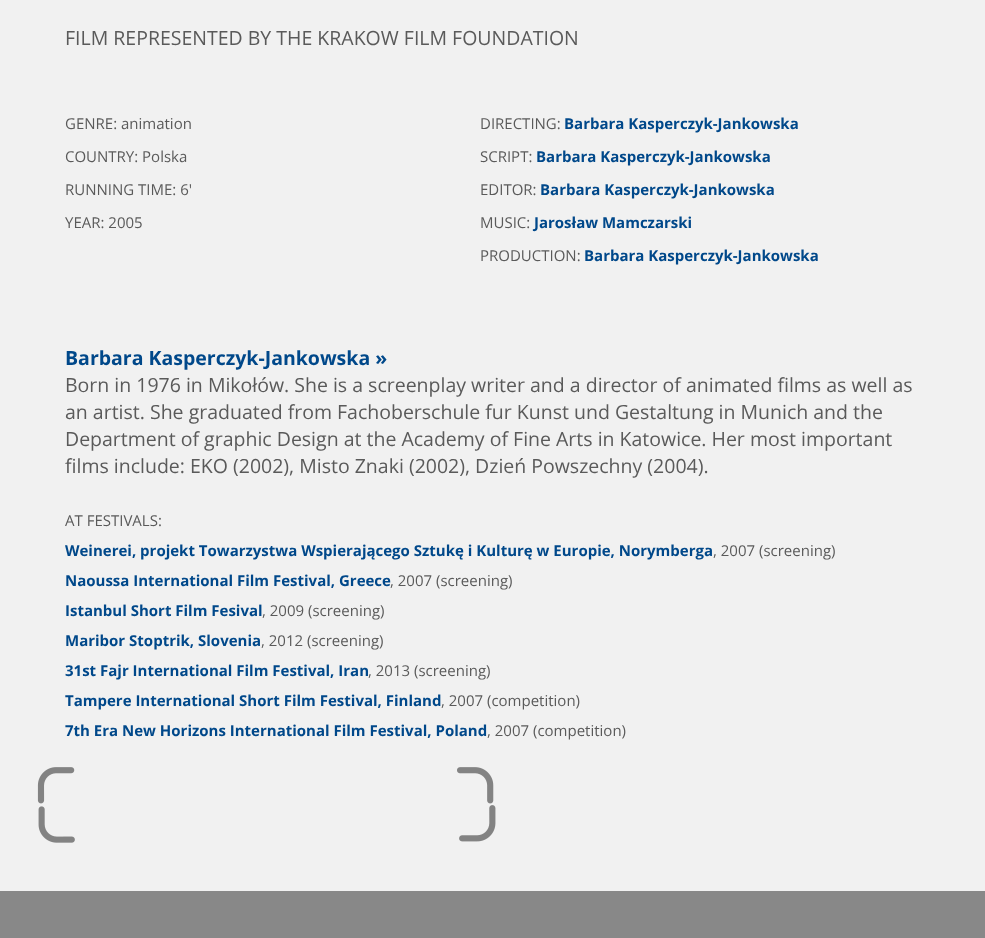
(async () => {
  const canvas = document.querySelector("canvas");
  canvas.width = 985;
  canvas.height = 938;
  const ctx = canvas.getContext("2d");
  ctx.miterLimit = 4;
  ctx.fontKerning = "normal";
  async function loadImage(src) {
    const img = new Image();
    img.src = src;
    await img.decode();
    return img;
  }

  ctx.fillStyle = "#f1f1f1";
  ctx.fillRect(0, 0, 985, 938);
  ctx.drawImage(await loadImage("img/1.png"), 37, 767, 38, 37);
  ctx.drawImage(await loadImage("img/2.png"), 457, 767, 37, 37);
  ctx.drawImage(await loadImage("img/3.png"), 38, 806, 37, 37);
  ctx.drawImage(await loadImage("img/4.png"), 459, 805, 37, 37);
  ctx.fillStyle = "#888888";
  ctx.fillRect(0, 891, 985, 47);
  ctx.font = "19.5px Open Sans";
  ctx.fillStyle = "#5a5a5a";
  ctx.fillText("FILM REPRESENTED BY THE KRAKOW FILM FOUNDATION", 65, 45);
  ctx.font = "15px Open Sans";
  for (const [text, x, y] of [
    ["GENRE: animation", 65, 129],
    ["COUNTRY: Polska", 65, 162],
    ["RUNNING TIME: 6'", 65, 195],
    ["YEAR: 2005", 65, 228],
    ["DIRECTING:", 480, 129],
  ]) {
    ctx.fillText(text, x, y);
  }
  ctx.font = "bold 15px Open Sans";
  ctx.fillStyle = "#00488a";
  ctx.fillText("Barbara Kasperczyk-Jankowska", 564, 129);
  ctx.font = "15px Open Sans";
  ctx.fillStyle = "#5a5a5a";
  ctx.fillText("SCRIPT:", 480, 162);
  ctx.font = "bold 15px Open Sans";
  ctx.fillStyle = "#00488a";
  ctx.fillText("Barbara Kasperczyk-Jankowska", 536, 162);
  ctx.font = "15px Open Sans";
  ctx.fillStyle = "#5a5a5a";
  ctx.fillText("EDITOR:", 480, 195);
  ctx.font = "bold 15px Open Sans";
  ctx.fillStyle = "#00488a";
  ctx.fillText("Barbara Kasperczyk-Jankowska", 540, 195);
  ctx.font = "15px Open Sans";
  ctx.fillStyle = "#5a5a5a";
  ctx.fillText("MUSIC:", 480, 228);
  ctx.font = "bold 15px Open Sans";
  ctx.fillStyle = "#00488a";
  ctx.fillText("Jarosław Mamczarski", 534, 228);
  ctx.font = "15px Open Sans";
  ctx.fillStyle = "#5a5a5a";
  ctx.fillText("PRODUCTION:", 480, 261);
  ctx.font = "bold 15px Open Sans";
  ctx.fillStyle = "#00488a";
  ctx.fillText("Barbara Kasperczyk-Jankowska", 584, 261);
  ctx.font = "bold 19.5px Open Sans";
  ctx.fillText("Barbara Kasperczyk-Jankowska »", 65, 365);
  ctx.font = "19.5px Open Sans";
  ctx.fillStyle = "#5a5a5a";
  for (const [text, x, y] of [
    ["Born in 1976 in Mikołów. She is a screenplay writer and a director of animated films as well as", 65, 392],
    ["an artist. She graduated from Fachoberschule fur Kunst und Gestaltung in Munich and the", 65, 419],
    ["Department of graphic Design at the Academy of Fine Arts in Katowice. Her most important", 65, 446],
    ["films include: EKO (2002), Misto Znaki (2002), Dzień Powszechny (2004).", 65, 473],
  ]) {
    ctx.fillText(text, x, y);
  }
  ctx.font = "15px Open Sans";
  ctx.fillText("AT FESTIVALS:", 65, 526);
  ctx.font = "bold 15px Open Sans";
  ctx.fillStyle = "#00488a";
  ctx.fillText("Weinerei, projekt Towarzystwa Wspierającego Sztukę i Kulturę w Europie, Norymberga", 65, 556);
  ctx.font = "15px Open Sans";
  ctx.fillStyle = "#5a5a5a";
  ctx.fillText(", 2007 (screening)", 713, 556);
  ctx.font = "bold 15px Open Sans";
  ctx.fillStyle = "#00488a";
  ctx.fillText("Naoussa International Film Festival, Greece", 65, 586);
  ctx.font = "15px Open Sans";
  ctx.fillStyle = "#5a5a5a";
  ctx.fillText(", 2007 (screening)", 390, 586);
  ctx.font = "bold 15px Open Sans";
  ctx.fillStyle = "#00488a";
  ctx.fillText("Istanbul Short Film Fesival", 65, 616);
  ctx.font = "15px Open Sans";
  ctx.fillStyle = "#5a5a5a";
  ctx.fillText(", 2009 (screening)", 262, 616);
  ctx.font = "bold 15px Open Sans";
  ctx.fillStyle = "#00488a";
  ctx.fillText("Maribor Stoptrik, Slovenia", 65, 646);
  ctx.font = "15px Open Sans";
  ctx.fillStyle = "#5a5a5a";
  ctx.fillText(", 2012 (screening)", 261, 646);
  ctx.font = "bold 15px Open Sans";
  ctx.fillStyle = "#00488a";
  ctx.fillText("31st Fajr International Film Festival, Iran", 65, 676);
  ctx.font = "15px Open Sans";
  ctx.fillStyle = "#5a5a5a";
  ctx.fillText(", 2013 (screening)", 368, 676);
  ctx.font = "bold 15px Open Sans";
  ctx.fillStyle = "#00488a";
  ctx.fillText("Tampere International Short Film Festival, Finland", 65, 706);
  ctx.font = "15px Open Sans";
  ctx.fillStyle = "#5a5a5a";
  ctx.fillText(", 2007 (competition)", 441, 706);
  ctx.font = "bold 15px Open Sans";
  ctx.fillStyle = "#00488a";
  ctx.fillText("7th Era New Horizons International Film Festival, Poland", 65, 736);
  ctx.font = "15px Open Sans";
  ctx.fillStyle = "#5a5a5a";
  ctx.fillText(", 2007 (competition)", 487, 736);
})();
